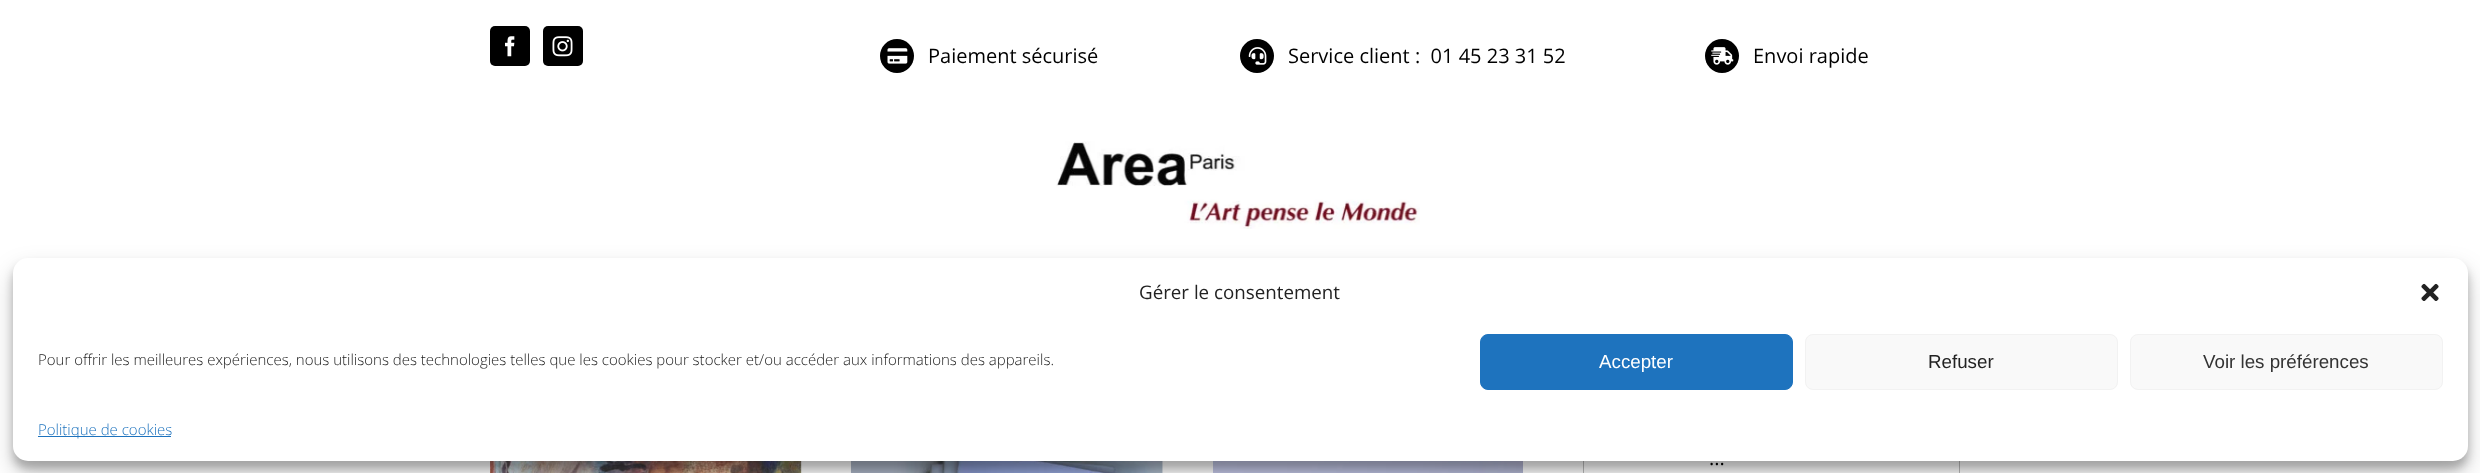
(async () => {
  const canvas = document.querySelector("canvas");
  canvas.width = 2480;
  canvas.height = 473;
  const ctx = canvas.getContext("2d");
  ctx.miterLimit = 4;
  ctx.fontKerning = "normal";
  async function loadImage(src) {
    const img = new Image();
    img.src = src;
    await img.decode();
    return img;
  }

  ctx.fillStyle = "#ffffff";
  ctx.fillRect(0, 0, 2480, 473);
  ctx.fillStyle = "#000000";
  ctx.beginPath();
  ctx.roundRect(490, 26, 40, 40, 5);
  ctx.fill();
  ctx.drawImage(await loadImage("img/1.png"), 505, 36, 10, 21);
  ctx.beginPath();
  ctx.roundRect(543, 26, 40, 40, 5);
  ctx.fill();
  ctx.drawImage(await loadImage("img/2.png"), 552, 36, 21, 21);
  ctx.beginPath();
  ctx.arc(897, 56, 17, 0, Math.PI * 2);
  ctx.fill();
  ctx.drawImage(await loadImage("img/3.png"), 887, 48, 21, 16);
  ctx.beginPath();
  ctx.arc(1257, 56, 17, 0, Math.PI * 2);
  ctx.fill();
  ctx.drawImage(await loadImage("img/4.png"), 1248, 47, 19, 18);
  ctx.beginPath();
  ctx.arc(1722, 56, 17, 0, Math.PI * 2);
  ctx.fill();
  ctx.drawImage(await loadImage("img/5.png"), 1711, 47, 23, 18);
  ctx.drawImage(await loadImage("img/6.png"), 1056, 141, 364, 88);
  ctx.drawImage(await loadImage("img/7.png"), 490, 461, 312, 12);
  ctx.drawImage(await loadImage("img/8.png"), 851, 461, 312, 12);
  ctx.drawImage(await loadImage("img/9.png"), 1213, 461, 310, 12);
  ctx.strokeStyle = "#bdbdbd";
  ctx.strokeRect(1583.5, 426.5, 376, 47);
  ctx.fillStyle = "rgba(0, 0, 0, 0.23)";
  ctx.filter = "blur(4px)";
  ctx.beginPath();
  ctx.roundRect(13, 265, 2455, 204, 15);
  ctx.fill();
  ctx.filter = "none";
  ctx.fillStyle = "rgba(0, 0, 0, 0.19)";
  ctx.filter = "blur(12.5px)";
  ctx.beginPath();
  ctx.roundRect(13, 270, 2455, 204, 15);
  ctx.fill();
  ctx.filter = "none";
  ctx.fillStyle = "#ffffff";
  ctx.beginPath();
  ctx.roundRect(13, 258, 2455, 203, 15);
  ctx.fill();
  ctx.drawImage(await loadImage("img/10.png"), 2421, 283, 18, 18);
  ctx.fillStyle = "#1e73be";
  ctx.beginPath();
  ctx.roundRect(1480.5, 334.5, 312, 55, 7.5);
  ctx.fill();
  ctx.strokeStyle = "#1e73be";
  ctx.stroke();
  ctx.fillStyle = "#f9f9f9";
  ctx.beginPath();
  ctx.roundRect(1805.5, 334.5, 312, 55, 7.5);
  ctx.fill();
  ctx.strokeStyle = "#f2f2f2";
  ctx.stroke();
  ctx.beginPath();
  ctx.roundRect(2130.5, 334.5, 312, 55, 7.5);
  ctx.fill();
  ctx.stroke();
  ctx.fillStyle = "#1e73be";
  ctx.fillRect(38, 436, 133, 1);
  ctx.font = "20px Open Sans";
  ctx.fillStyle = "#000000";
  for (const [text, x, y] of [
    ["Paiement sécurisé", 928, 63],
    ["Service client :  01 45 23 31 52", 1288, 63],
    ["Envoi rapide", 1753, 63],
    ["...", 1709, 465],
  ]) {
    ctx.fillText(text, x, y);
  }
  ctx.font = "18.75px Open Sans";
  ctx.fillStyle = "#222222";
  ctx.fillText("Gérer le consentement", 1139, 299);
  ctx.font = "300 15px Open Sans";
  ctx.fillText("Pour offrir les meilleures expériences, nous utilisons des technologies telles que les cookies pour stocker et/ou accéder aux informations des appareils.", 38, 365);
  ctx.font = "18.75px Liberation Sans";
  ctx.fillStyle = "#ffffff";
  ctx.fillText("Accepter", 1599, 368);
  ctx.fillStyle = "#222222";
  ctx.fillText("Refuser", 1928, 368);
  ctx.fillStyle = "#333333";
  ctx.fillText("Voir les préférences", 2203, 368);
  ctx.font = "300 15px Open Sans";
  ctx.fillStyle = "#1e73be";
  ctx.fillText("Politique de cookies", 38, 435);
})();
